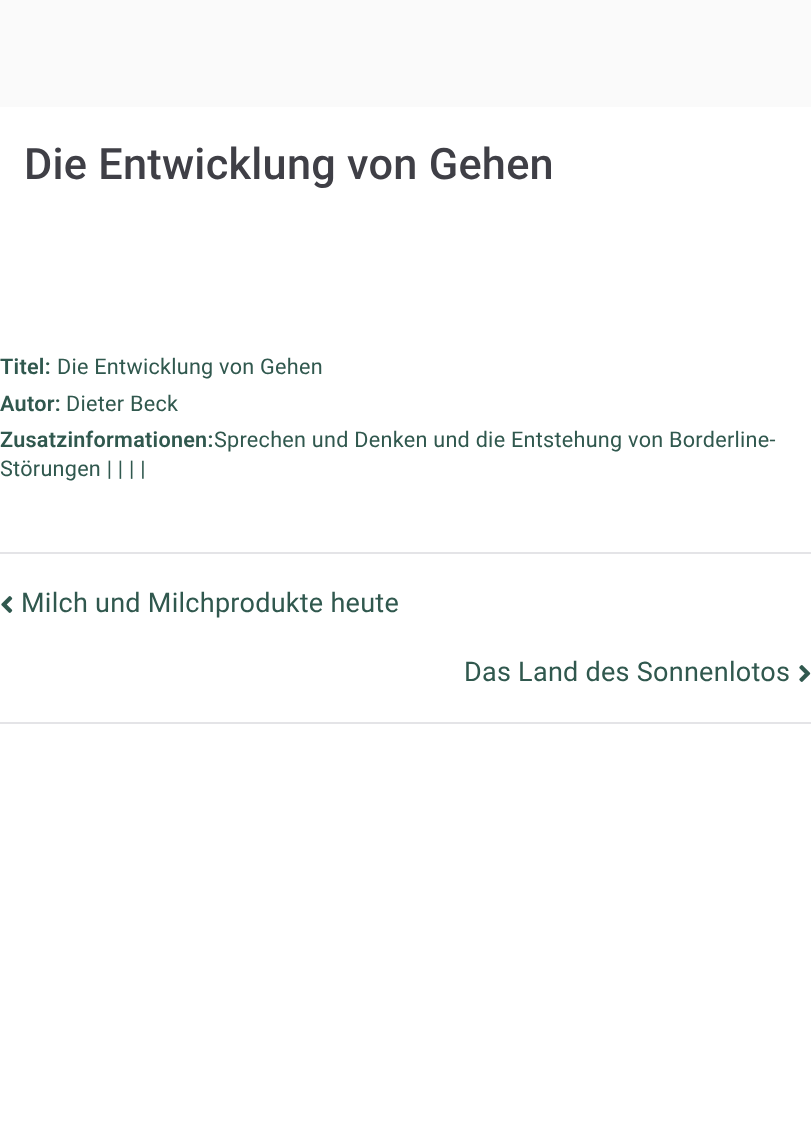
(async () => {
  const canvas = document.querySelector("canvas");
  canvas.width = 811;
  canvas.height = 1140;
  const ctx = canvas.getContext("2d");
  ctx.miterLimit = 4;
  ctx.fontKerning = "normal";
  async function loadImage(src) {
    const img = new Image();
    img.src = src;
    await img.decode();
    return img;
  }

  ctx.fillStyle = "#fafafa";
  ctx.fillRect(0, 0, 811, 1140);
  for (const [x, y, w, h, color] of [
    [0, 107, 811, 1033, "#ffffff"],
    [0, 552, 811, 2, "#e4e4e7"],
    [0, 722, 811, 2, "#e4e4e7"],
  ]) {
    ctx.fillStyle = color;
    ctx.fillRect(x, y, w, h);
  }
  ctx.drawImage(await loadImage("img/1.png"), 1, 596, 12, 17);
  ctx.drawImage(await loadImage("img/2.png"), 799, 665, 12, 17);
  ctx.letterSpacing = "0.27px";
  ctx.font = "500 43.25px Roboto";
  ctx.fillStyle = "#3f3f46";
  ctx.fillText("Die Entwicklung von Gehen", 24, 179);
  ctx.font = "600 21.6px Roboto";
  ctx.fillStyle = "#30584e";
  ctx.fillText("Titel:", 0, 374);
  ctx.font = "21.6px Roboto";
  ctx.fillText("Die Entwicklung von Gehen", 57, 374);
  ctx.font = "600 21.6px Roboto";
  ctx.fillText("Autor:", 0, 411);
  ctx.font = "21.6px Roboto";
  ctx.fillText("Dieter Beck", 66, 411);
  ctx.font = "600 21.6px Roboto";
  ctx.fillText("Zusatzinformationen:", 0, 447);
  ctx.font = "21.6px Roboto";
  ctx.fillText("Sprechen und Denken und die Entstehung von Borderline-", 214, 447);
  ctx.fillText("Störungen | | | |", 0, 476);
  ctx.font = "27px Roboto";
  ctx.fillText("Milch und Milchprodukte heute", 21, 612);
  ctx.fillText("Das Land des Sonnenlotos", 464, 681);
})();
